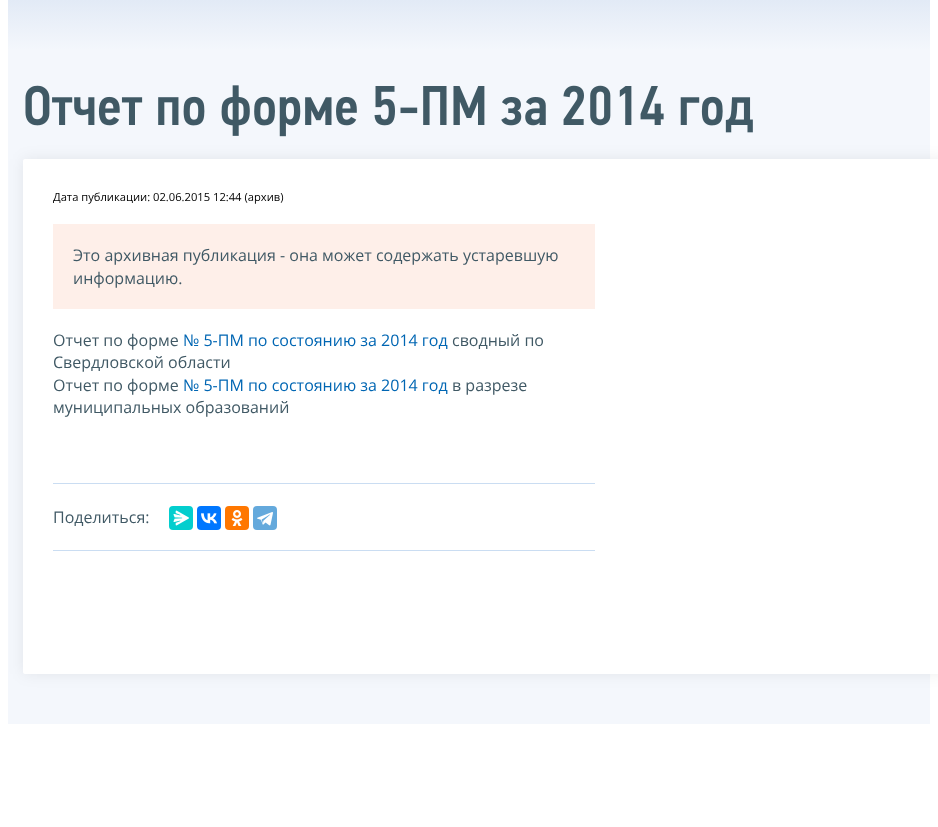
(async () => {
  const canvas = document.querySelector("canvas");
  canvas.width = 938;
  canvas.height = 827;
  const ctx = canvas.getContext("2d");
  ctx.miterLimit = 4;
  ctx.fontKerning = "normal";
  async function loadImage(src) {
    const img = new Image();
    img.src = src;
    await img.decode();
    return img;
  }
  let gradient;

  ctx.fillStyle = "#ffffff";
  ctx.fillRect(0, 0, 938, 827);
  ctx.fillStyle = "#f4f7fc";
  ctx.fillRect(8, 50, 922, 674);
  gradient = ctx.createLinearGradient(469, 0, 469, 50);
  gradient.addColorStop(0, "#e2eaf6");
  gradient.addColorStop(1, "#f4f7fc");
  ctx.fillStyle = gradient;
  ctx.fillRect(8, 0, 922, 50);
  ctx.fillStyle = "rgba(0, 0, 0, 0.07)";
  ctx.filter = "blur(7.5px)";
  ctx.beginPath();
  ctx.roundRect(23, 159, 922, 515, 2);
  ctx.fill();
  ctx.filter = "none";
  ctx.drawImage(await loadImage("img/1.png"), 25, 85, 728, 52);
  ctx.fillStyle = "#ffffff";
  ctx.beginPath();
  ctx.roundRect(23, 159, 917, 515, 2);
  ctx.fill();
  for (const [x, y, w, h, color] of [
    [53, 224, 542, 85, "#feefe9"],
    [53, 483, 542, 1, "#caddf2"],
    [53, 550, 542, 1, "#caddf2"],
  ]) {
    ctx.fillStyle = color;
    ctx.fillRect(x, y, w, h);
  }
  ctx.fillStyle = "#03cece";
  ctx.beginPath();
  ctx.roundRect(169, 506, 24, 24, 4);
  ctx.fill();
  ctx.drawImage(await loadImage("img/2.png"), 173, 510, 16, 16);
  ctx.fillStyle = "#0077ff";
  ctx.beginPath();
  ctx.roundRect(197, 506, 24, 24, 4);
  ctx.fill();
  ctx.drawImage(await loadImage("img/3.png"), 201, 513, 16, 11);
  ctx.fillStyle = "#ff7700";
  ctx.beginPath();
  ctx.roundRect(225, 506, 24, 24, 4);
  ctx.fill();
  ctx.drawImage(await loadImage("img/4.png"), 231, 510, 12, 16);
  ctx.fillStyle = "#64a9dc";
  ctx.beginPath();
  ctx.roundRect(253, 506, 24, 24, 4);
  ctx.fill();
  ctx.drawImage(await loadImage("img/5.png"), 257, 512, 16, 14);
  ctx.font = "11.2px Open Sans";
  ctx.fillStyle = "#000000";
  ctx.fillText("Дата публикации: 02.06.2015 12:44 (архив)", 53, 201);
  ctx.font = "16px Open Sans";
  ctx.fillStyle = "#405965";
  for (const [text, x, y] of [
    ["Это архивная публикация - она может содержать устаревшую", 73, 261],
    ["информацию.", 73, 284],
    ["Отчет по форме", 53, 346],
  ]) {
    ctx.fillText(text, x, y);
  }
  ctx.fillStyle = "#0066b3";
  ctx.fillText("№ 5-ПМ по состоянию за 2014 год", 183, 346);
  ctx.fillStyle = "#405965";
  for (const [text, x, y] of [
    ["сводный по", 452, 346],
    ["Свердловской области", 53, 368],
    ["Отчет по форме", 53, 391],
  ]) {
    ctx.fillText(text, x, y);
  }
  ctx.fillStyle = "#0066b3";
  ctx.fillText("№ 5-ПМ по состоянию за 2014 год", 183, 391);
  ctx.fillStyle = "#405965";
  for (const [text, x, y] of [
    ["в разрезе", 452, 391],
    ["муниципальных образований", 53, 413],
    ["Поделиться:", 53, 523],
  ]) {
    ctx.fillText(text, x, y);
  }
})();
